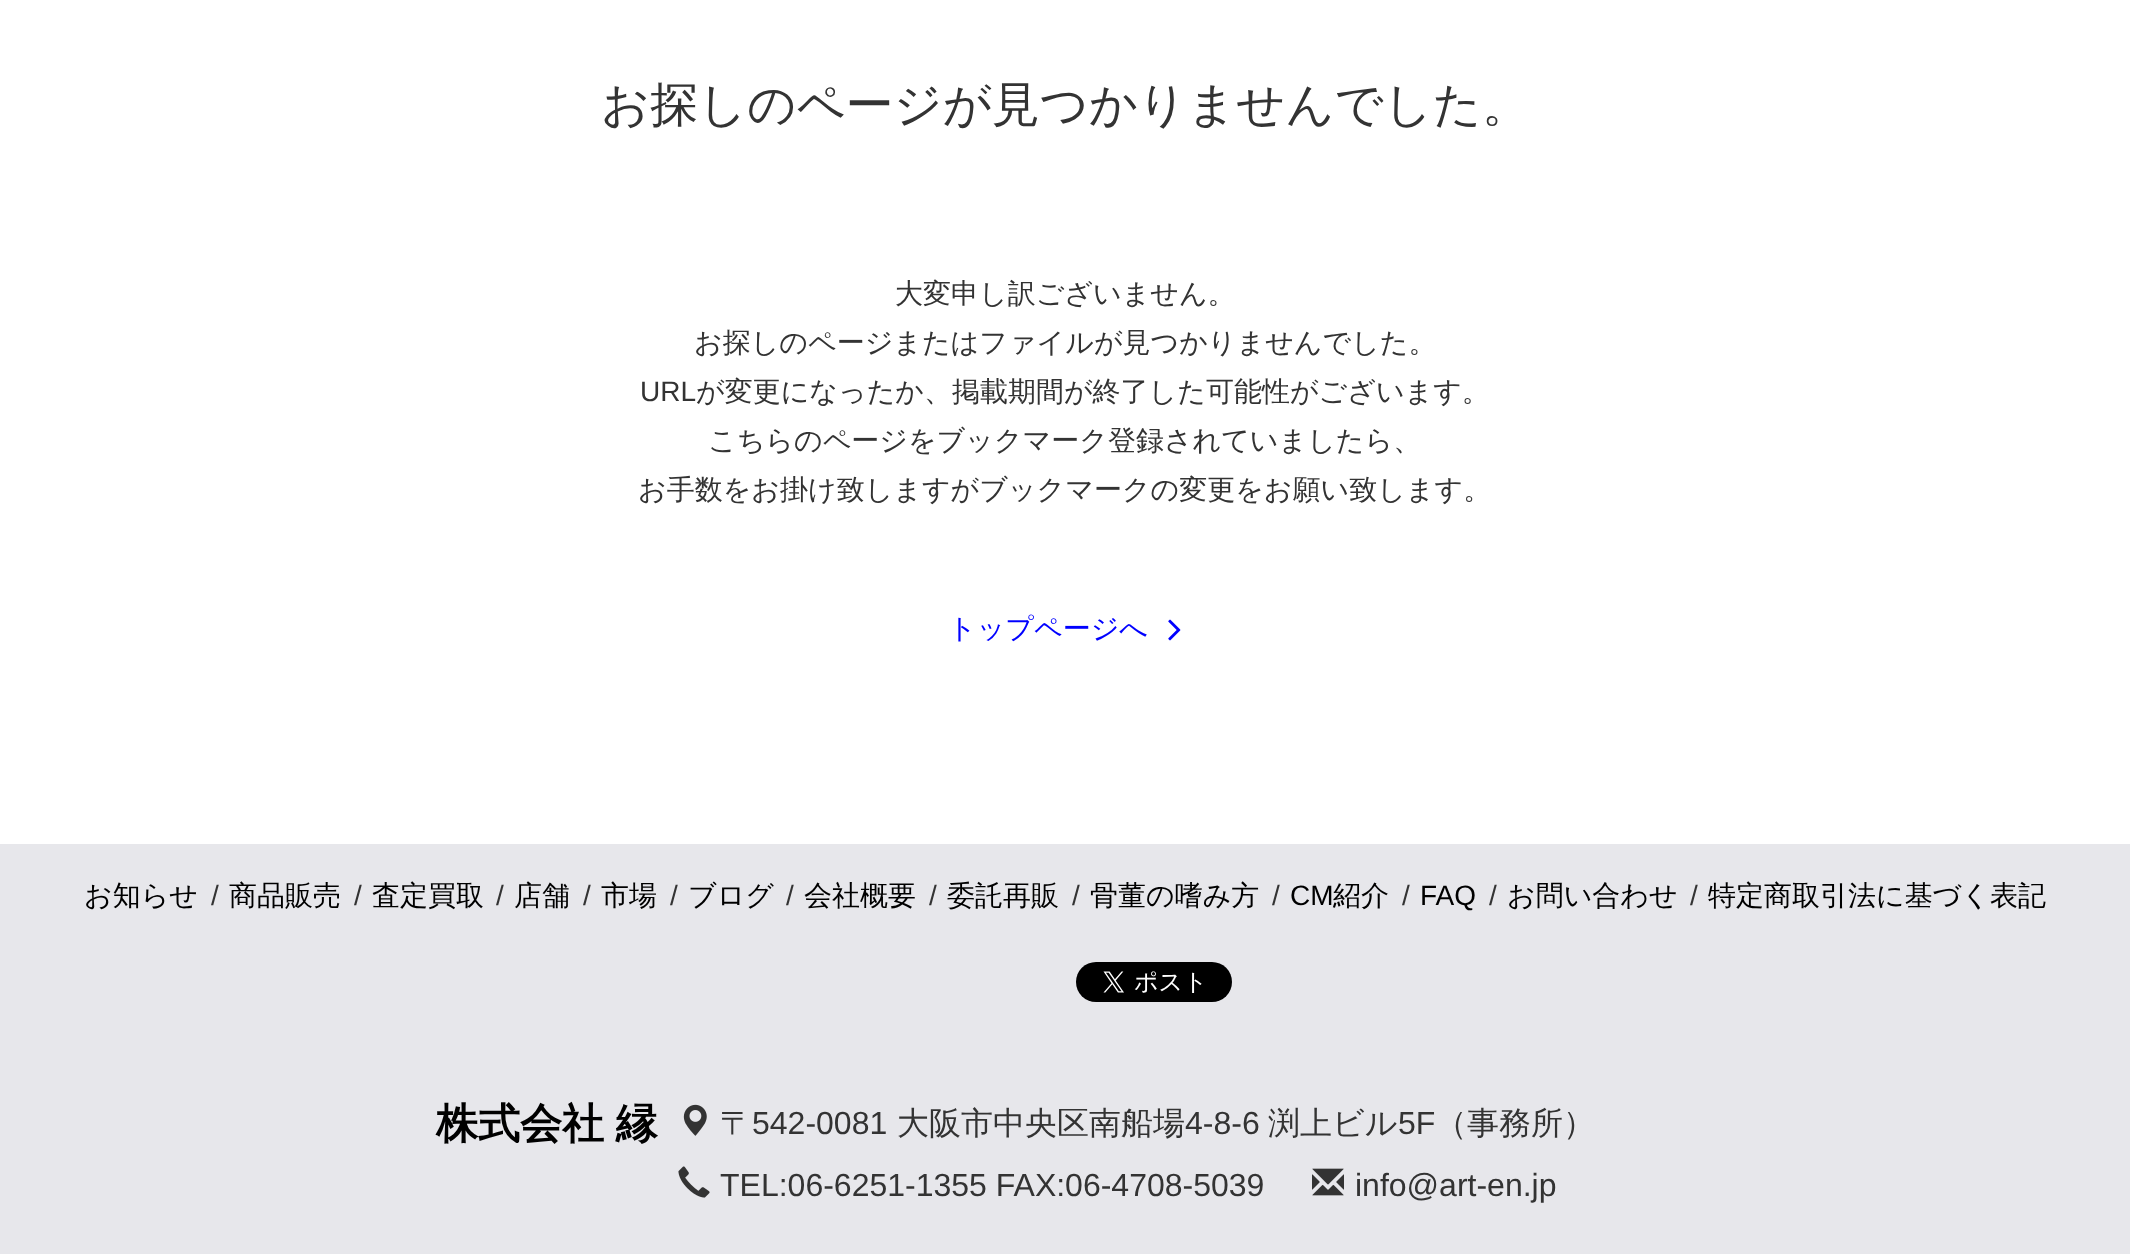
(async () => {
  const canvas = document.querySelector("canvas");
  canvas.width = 2130;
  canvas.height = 1254;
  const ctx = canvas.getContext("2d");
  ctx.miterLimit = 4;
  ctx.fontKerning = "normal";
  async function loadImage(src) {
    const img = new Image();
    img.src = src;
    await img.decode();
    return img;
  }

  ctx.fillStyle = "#ffffff";
  ctx.fillRect(0, 0, 2130, 1254);
  ctx.drawImage(await loadImage("img/1.png"), 1168, 619, 13, 22);
  ctx.fillStyle = "#e7e7eb";
  ctx.fillRect(0, 844, 2130, 410);
  ctx.drawImage(await loadImage("img/2.png"), 1076, 962, 156, 40);
  ctx.drawImage(await loadImage("img/3.png"), 683, 1104, 24, 32);
  ctx.drawImage(await loadImage("img/4.png"), 678, 1166, 32, 32);
  ctx.drawImage(await loadImage("img/5.png"), 1312, 1168, 32, 28);
  ctx.font = "500 48px WenQuanYi Zen Hei";
  ctx.fillStyle = "#333333";
  ctx.fillText("お探しのページが見つかりませんでした。", 601, 121);
  ctx.font = "500 28px WenQuanYi Zen Hei";
  ctx.fillText("大変申し訳ございません。", 895, 303);
  ctx.fillText("お探しのページまたはファイルが見つかりませんでした。", 694, 352);
  ctx.font = "28px Liberation Sans";
  ctx.fillText("URL", 640, 401);
  ctx.font = "500 28px WenQuanYi Zen Hei";
  for (const [text, x, y] of [
    ["が変更になったか、掲載期間が終了した可能性がございます。", 696, 401],
    ["こちらのページをブックマーク登録されていましたら、", 708, 450],
    ["お手数をお掛け致しますがブックマークの変更をお願い致します。", 638, 499],
  ]) {
    ctx.fillText(text, x, y);
  }
  ctx.fillStyle = "#0000ff";
  ctx.fillText("トップページへ", 948, 638);
  ctx.fillStyle = "#000000";
  ctx.fillText("お知らせ", 84, 905);
  ctx.font = "28px Liberation Sans";
  ctx.fillStyle = "#333333";
  ctx.fillText("/", 211, 905);
  ctx.font = "500 28px WenQuanYi Zen Hei";
  ctx.fillStyle = "#000000";
  ctx.fillText("商品販売", 229, 905);
  ctx.font = "28px Liberation Sans";
  ctx.fillStyle = "#333333";
  ctx.fillText("/", 354, 905);
  ctx.font = "500 28px WenQuanYi Zen Hei";
  ctx.fillStyle = "#000000";
  ctx.fillText("査定買取", 372, 905);
  ctx.font = "28px Liberation Sans";
  ctx.fillStyle = "#333333";
  ctx.fillText("/", 496, 905);
  ctx.font = "500 28px WenQuanYi Zen Hei";
  ctx.fillStyle = "#000000";
  ctx.fillText("店舗", 514, 905);
  ctx.font = "28px Liberation Sans";
  ctx.fillStyle = "#333333";
  ctx.fillText("/", 583, 905);
  ctx.font = "500 28px WenQuanYi Zen Hei";
  ctx.fillStyle = "#000000";
  ctx.fillText("市場", 601, 905);
  ctx.font = "28px Liberation Sans";
  ctx.fillStyle = "#333333";
  ctx.fillText("/", 670, 905);
  ctx.font = "500 28px WenQuanYi Zen Hei";
  ctx.fillStyle = "#000000";
  ctx.fillText("ブログ", 688, 905);
  ctx.font = "28px Liberation Sans";
  ctx.fillStyle = "#333333";
  ctx.fillText("/", 786, 905);
  ctx.font = "500 28px WenQuanYi Zen Hei";
  ctx.fillStyle = "#000000";
  ctx.fillText("会社概要", 804, 905);
  ctx.font = "28px Liberation Sans";
  ctx.fillStyle = "#333333";
  ctx.fillText("/", 929, 905);
  ctx.font = "500 28px WenQuanYi Zen Hei";
  ctx.fillStyle = "#000000";
  ctx.fillText("委託再販", 947, 905);
  ctx.font = "28px Liberation Sans";
  ctx.fillStyle = "#333333";
  ctx.fillText("/", 1072, 905);
  ctx.font = "500 28px WenQuanYi Zen Hei";
  ctx.fillStyle = "#000000";
  ctx.fillText("骨董の嗜み方", 1090, 905);
  ctx.font = "28px Liberation Sans";
  ctx.fillStyle = "#333333";
  ctx.fillText("/", 1272, 905);
  ctx.fillStyle = "#000000";
  ctx.fillText("CM", 1290, 905);
  ctx.font = "500 28px WenQuanYi Zen Hei";
  ctx.fillText("紹介", 1333, 905);
  ctx.font = "28px Liberation Sans";
  ctx.fillStyle = "#333333";
  ctx.fillText("/", 1402, 905);
  ctx.fillStyle = "#000000";
  ctx.fillText("FAQ", 1420, 905);
  ctx.fillStyle = "#333333";
  ctx.fillText("/", 1489, 905);
  ctx.font = "500 28px WenQuanYi Zen Hei";
  ctx.fillStyle = "#000000";
  ctx.fillText("お問い合わせ", 1507, 905);
  ctx.font = "28px Liberation Sans";
  ctx.fillStyle = "#333333";
  ctx.fillText("/", 1690, 905);
  ctx.font = "500 28px WenQuanYi Zen Hei";
  ctx.fillStyle = "#000000";
  ctx.fillText("特定商取引法に基づく表記", 1708, 905);
  ctx.wordSpacing = "-1px";
  ctx.font = "bold 42px WenQuanYi Zen Hei";
  ctx.fillText("株式会社 縁", 436, 1138);
  ctx.wordSpacing = "0px";
  ctx.font = "500 32px WenQuanYi Zen Hei";
  ctx.fillStyle = "#333333";
  ctx.fillText("〒", 720, 1134);
  ctx.font = "32px Liberation Sans";
  ctx.fillText("542-0081", 752, 1134);
  ctx.font = "500 32px WenQuanYi Zen Hei";
  ctx.fillText("大阪市中央区南船場", 897, 1134);
  ctx.font = "32px Liberation Sans";
  ctx.fillText("4-8-6", 1185, 1134);
  ctx.font = "500 32px WenQuanYi Zen Hei";
  ctx.fillText("渕上ビル", 1268, 1134);
  ctx.font = "32px Liberation Sans";
  ctx.fillText("5F", 1398, 1134);
  ctx.font = "500 32px WenQuanYi Zen Hei";
  ctx.fillText("（事務所）", 1435, 1134);
  ctx.font = "32px Liberation Sans";
  ctx.fillText("TEL:06-6251-1355 FAX:06-4708-5039", 720, 1196);
  ctx.fillText("info@art-en.jp", 1355, 1196);
})();
